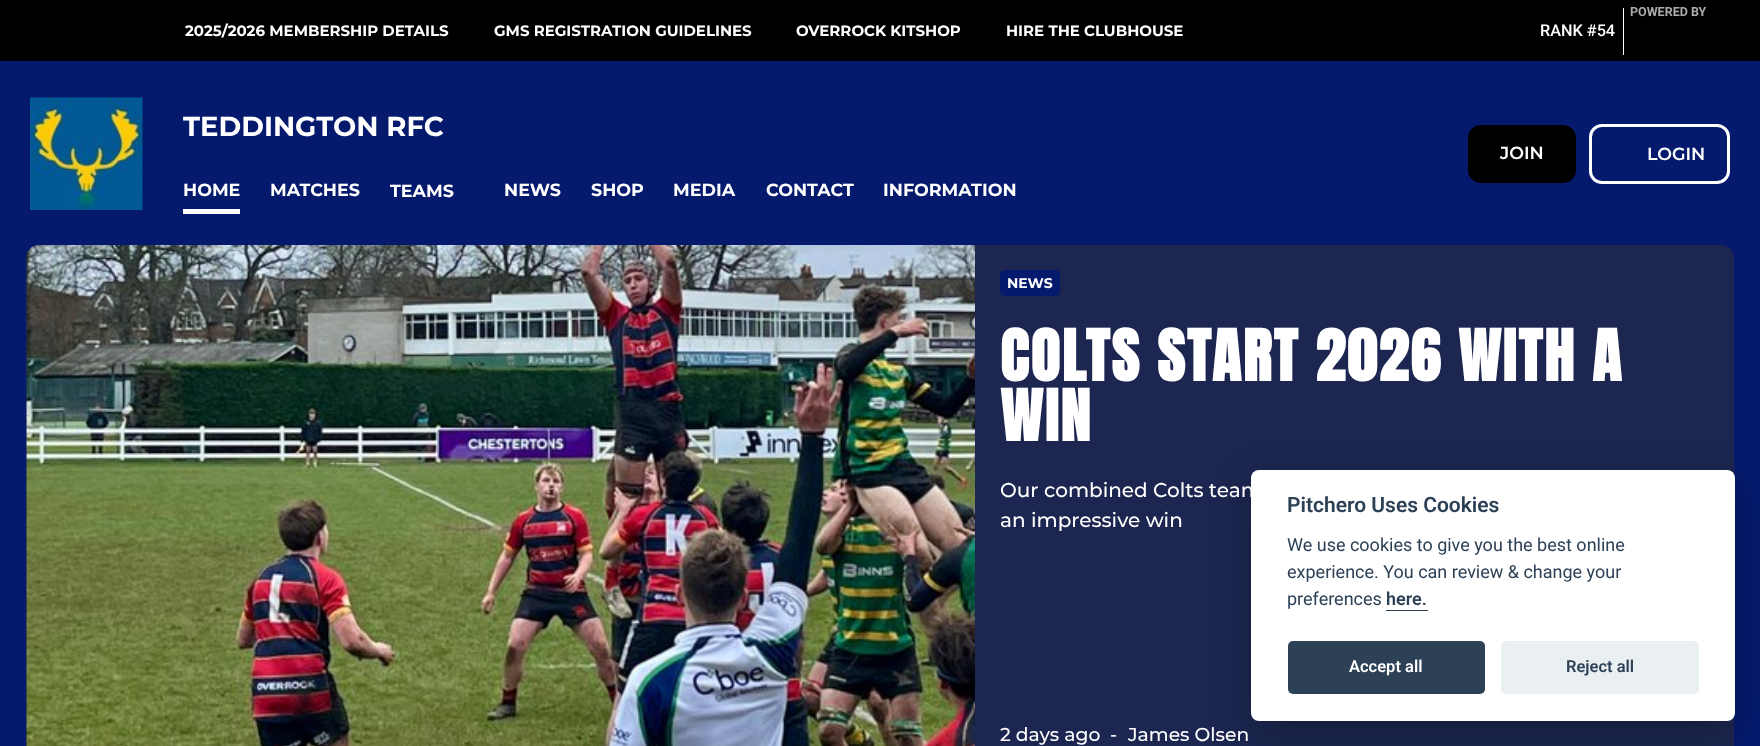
(async () => {
  const canvas = document.querySelector("canvas");
  canvas.width = 1760;
  canvas.height = 746;
  const ctx = canvas.getContext("2d");
  ctx.miterLimit = 4;
  ctx.fontKerning = "normal";
  async function loadImage(src) {
    const img = new Image();
    img.src = src;
    await img.decode();
    return img;
  }

  ctx.fillStyle = "#051a6d";
  ctx.fillRect(0, 0, 1760, 746);
  ctx.fillStyle = "#000000";
  ctx.fillRect(0, 0, 1760, 61);
  ctx.fillStyle = "#ffffff";
  ctx.fillRect(1623, 8, 1, 47);
  ctx.drawImage(await loadImage("img/1.png"), 30, 97, 113, 113);
  ctx.fillRect(183, 209, 57, 5);
  ctx.fillStyle = "#000000";
  ctx.beginPath();
  ctx.roundRect(1469.5, 126.5, 105, 55, 11.5);
  ctx.fill();
  ctx.strokeStyle = "#000000";
  ctx.lineWidth = 3;
  ctx.stroke();
  ctx.beginPath();
  ctx.roundRect(1590.5, 125.5, 138, 57, 11.5);
  ctx.strokeStyle = "#ffffff";
  ctx.stroke();
  ctx.fillStyle = "#1c2650";
  ctx.beginPath();
  ctx.roundRect(26, 245, 1708, 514, 13);
  ctx.fill();
  ctx.drawImage(await loadImage("img/2.png"), 26, 245, 949, 501);
  ctx.fillStyle = "#051a6d";
  ctx.beginPath();
  ctx.roundRect(1000, 270, 60, 26, 5);
  ctx.fill();
  ctx.fillStyle = "rgba(2, 2, 3, 0.28)";
  ctx.filter = "blur(19px)";
  ctx.beginPath();
  ctx.roundRect(1251, 483, 484, 251, 8);
  ctx.fill();
  ctx.filter = "none";
  ctx.fillStyle = "#ffffff";
  ctx.beginPath();
  ctx.roundRect(1251, 470, 484, 251, 8);
  ctx.fill();
  ctx.fillStyle = "#2d4156";
  ctx.fillRect(1386, 610, 42, 1);
  ctx.beginPath();
  ctx.roundRect(1288, 641, 197, 53, 5);
  ctx.fill();
  ctx.fillStyle = "#eaeff2";
  ctx.beginPath();
  ctx.roundRect(1501, 641, 198, 53, 5);
  ctx.fill();
  ctx.font = "bold 15px Montserrat";
  ctx.fillStyle = "#ffffff";
  for (const [text, x, y] of [
    ["2025/2026 MEMBERSHIP DETAILS", 185, 36],
    ["GMS REGISTRATION GUIDELINES", 494, 36],
    ["OVERROCK KITSHOP", 796, 36],
    ["HIRE THE CLUBHOUSE", 1006, 36],
  ]) {
    ctx.fillText(text, x, y);
  }
  ctx.font = "500 16.25px Roboto";
  ctx.fillText("RANK #54", 1540, 36);
  ctx.font = "bold 12.5px Roboto";
  ctx.fillStyle = "#ababab";
  ctx.fillText("POWERED BY", 1630, 16);
  ctx.font = "bold 27.5px Montserrat";
  ctx.fillStyle = "#ffffff";
  ctx.fillText("TEDDINGTON RFC", 183, 136);
  ctx.font = "bold 17.5px Montserrat";
  for (const [text, x, y] of [
    ["HOME", 183, 196],
    ["MATCHES", 270, 196],
    ["TEAMS", 390, 197],
    ["NEWS", 504, 196],
    ["SHOP", 591, 196],
    ["MEDIA", 673, 196],
    ["CONTACT", 766, 196],
    ["INFORMATION", 883, 196],
  ]) {
    ctx.fillText(text, x, y);
  }
  ctx.font = "600 17.5px Montserrat";
  ctx.fillText("JOIN", 1500, 159);
  ctx.fillText("LOGIN", 1647, 160);
  ctx.font = "bold 14px Montserrat";
  ctx.fillText("NEWS", 1007, 288);
  ctx.letterSpacing = "2px";
  ctx.font = "bold 60px Anton";
  ctx.fillText("COLTS START 2026 WITH A", 1000, 381);
  ctx.fillText("WIN", 1000, 441);
  ctx.letterSpacing = "0px";
  ctx.font = "500 20px Montserrat";
  ctx.fillText("Our combined Colts team", 1000, 497);
  ctx.fillText("an impressive win", 1000, 527);
  ctx.font = "500 18.75px Montserrat";
  for (const [text, x, y] of [
    ["2 days ago", 1000, 741],
    ["-", 1110, 741],
    ["James Olsen", 1128, 741],
  ]) {
    ctx.fillText(text, x, y);
  }
  ctx.font = "600 21px Roboto";
  ctx.fillStyle = "#2d4156";
  ctx.fillText("Pitchero Uses Cookies", 1287, 512);
  ctx.font = "18px Roboto";
  for (const [text, x, y] of [
    ["We use cookies to give you the best online", 1287, 551],
    ["experience. You can review & change your", 1287, 578],
    ["preferences", 1287, 605],
  ]) {
    ctx.fillText(text, x, y);
  }
  ctx.font = "600 18px Roboto";
  ctx.fillText("here.", 1386, 605);
  ctx.font = "600 16.5px Roboto";
  ctx.fillStyle = "#ffffff";
  ctx.fillText("Accept all", 1349, 672);
  ctx.fillStyle = "#2d4156";
  ctx.fillText("Reject all", 1566, 672);
})();
